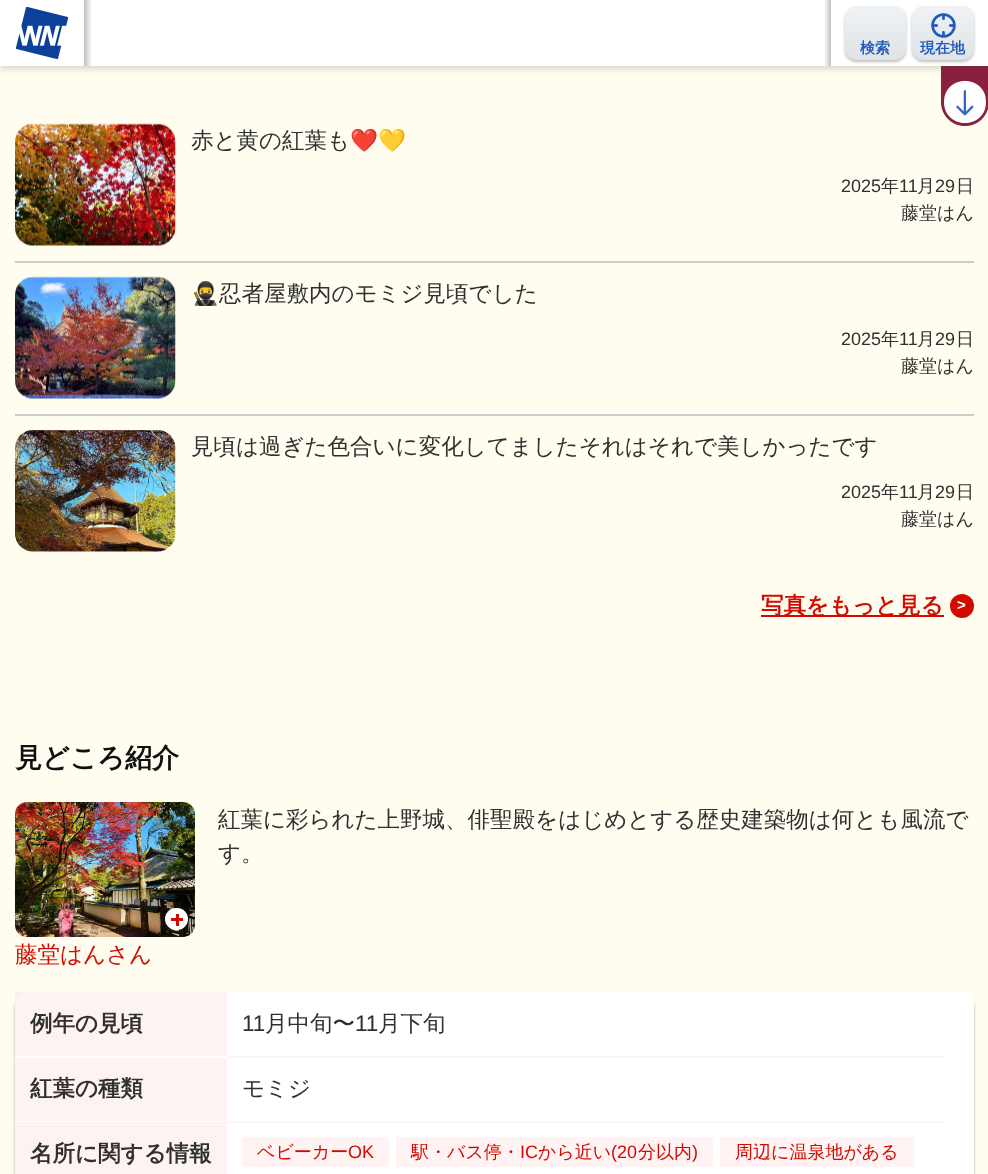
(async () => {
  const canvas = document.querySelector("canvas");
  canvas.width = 988;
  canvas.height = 1174;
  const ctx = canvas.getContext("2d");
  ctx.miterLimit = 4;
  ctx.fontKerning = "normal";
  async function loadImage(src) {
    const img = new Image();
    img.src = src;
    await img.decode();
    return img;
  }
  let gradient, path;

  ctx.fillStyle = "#fffdef";
  ctx.fillRect(0, 0, 988, 1174);
  ctx.fillStyle = "rgba(0, 0, 0, 0.15)";
  ctx.filter = "blur(3px)";
  ctx.beginPath();
  ctx.rect(0, 3, 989, 66);
  ctx.fill();
  ctx.filter = "none";
  ctx.fillStyle = "#ffffff";
  ctx.fillRect(0, 0, 988, 66);
  ctx.drawImage(await loadImage("img/1.png"), 16, 7, 52, 52);
  gradient = ctx.createLinearGradient(84, 33, 92, 33);
  gradient.addColorStop(0, "#bfbfbf");
  gradient.addColorStop(1, "#ffffff");
  ctx.fillStyle = gradient;
  ctx.fillRect(84, 0, 8, 66);
  gradient = ctx.createLinearGradient(831, 33, 824, 33);
  gradient.addColorStop(0, "#bfbfbf");
  gradient.addColorStop(1, "#ffffff");
  ctx.fillStyle = gradient;
  ctx.fillRect(824, 0, 7, 66);
  ctx.fillStyle = "rgba(0, 0, 0, 0.25)";
  ctx.filter = "blur(1.5px)";
  ctx.beginPath();
  ctx.roundRect(845, 8, 61, 54, 12);
  ctx.fill();
  ctx.filter = "none";
  gradient = ctx.createLinearGradient(875, 6, 875, 60);
  gradient.addColorStop(0, "#f0f3f6");
  gradient.addColorStop(1, "#e0e3e6");
  ctx.fillStyle = gradient;
  ctx.beginPath();
  ctx.roundRect(845, 6, 61, 54, 12);
  ctx.fill();
  ctx.fillStyle = "rgba(0, 0, 0, 0.25)";
  ctx.filter = "blur(1.5px)";
  ctx.beginPath();
  ctx.roundRect(912, 8, 62, 54, 12);
  ctx.fill();
  ctx.filter = "none";
  gradient = ctx.createLinearGradient(943, 6, 943, 60);
  gradient.addColorStop(0, "#f0f3f6");
  gradient.addColorStop(1, "#e0e3e6");
  ctx.fillStyle = gradient;
  ctx.beginPath();
  ctx.roundRect(912, 6, 62, 54, 12);
  ctx.fill();
  ctx.drawImage(await loadImage("img/2.png"), 931, 13, 25, 25);
  ctx.fillStyle = "#88203e";
  path = new Path2D("M941 66H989V102C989 115.5 978.5 126 965 126C951.5 126 941 115.5 941 102Z");
  ctx.fill(path);
  ctx.fillStyle = "#ffffff";
  path = new Path2D("M986 102C986 130 944 130 944 102C944 74 986 74 986 102Z");
  ctx.fill(path);
  ctx.drawImage(await loadImage("img/3.png"), 956, 90, 18, 26);
  ctx.fillStyle = "#cccccc";
  ctx.fillRect(15, 261, 959, 2);
  ctx.drawImage(await loadImage("img/4.png"), 15, 123, 161, 123);
  ctx.fillRect(15, 414, 959, 2);
  ctx.drawImage(await loadImage("img/5.png"), 15, 276, 161, 123);
  ctx.drawImage(await loadImage("img/6.png"), 15, 430, 161, 122);
  ctx.fillStyle = "#d20b00";
  ctx.fillRect(761, 615, 183, 2);
  ctx.beginPath();
  ctx.arc(962, 606, 12, 0, Math.PI * 2);
  ctx.fill();
  ctx.drawImage(await loadImage("img/7.png"), 15, 802, 180, 135);
  ctx.fillStyle = "#ffffff";
  ctx.beginPath();
  ctx.roundRect(165, 908, 23, 22, 11);
  ctx.fill();
  ctx.fillStyle = "#d20b00";
  ctx.fillRect(171, 918, 12, 3);
  ctx.fillRect(176, 914, 3, 12);
  ctx.fillStyle = "rgba(0, 0, 0, 0.3)";
  ctx.filter = "blur(1.5px)";
  ctx.beginPath();
  ctx.roundRect(15, 996, 959, 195, 12);
  ctx.fill();
  ctx.filter = "none";
  ctx.fillStyle = "#ffffff";
  ctx.beginPath();
  ctx.roundRect(15, 992, 959, 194, 12);
  ctx.fill();
  for (const [x, y, w, h, color] of [
    [15, 992, 212, 64, "rgba(210, 11, 0, 0.05)"],
    [227, 1056, 717, 2, "#fdf3f2"],
    [15, 1058, 212, 63, "#fdf3f2"],
    [227, 1121, 717, 2, "#fdf3f2"],
    [15, 1122, 212, 52, "#fdf3f2"],
    [242, 1137, 147, 30, "#fff3f3"],
    [396, 1137, 317, 30, "#fff3f3"],
    [720, 1137, 194, 30, "#fff3f3"],
  ]) {
    ctx.fillStyle = color;
    ctx.fillRect(x, y, w, h);
  }
  ctx.font = "bold 15px WenQuanYi Zen Hei";
  ctx.fillStyle = "#1f59ba";
  ctx.fillText("検索", 860, 53);
  ctx.fillText("現在地", 920, 53);
  ctx.font = "500 22.5px WenQuanYi Zen Hei";
  ctx.fillStyle = "#303030";
  ctx.fillText("赤と黄の紅葉も", 191, 148);
  ctx.font = "22.5px Noto Color Emoji";
  ctx.fillText("❤️💛", 350, 148);
  ctx.font = "18px Liberation Sans";
  ctx.fillText("2025", 841, 192);
  ctx.font = "500 18px WenQuanYi Zen Hei";
  ctx.fillText("年", 881, 192);
  ctx.font = "18px Liberation Sans";
  ctx.fillText("11", 899, 192);
  ctx.font = "500 18px WenQuanYi Zen Hei";
  ctx.fillText("月", 917, 192);
  ctx.font = "18px Liberation Sans";
  ctx.fillText("29", 935, 192);
  ctx.font = "500 18px WenQuanYi Zen Hei";
  ctx.fillText("日", 956, 192);
  ctx.fillText("藤堂はん", 901, 219);
  ctx.font = "22.5px Noto Color Emoji";
  ctx.fillText("🥷", 191, 301);
  ctx.font = "500 22.5px WenQuanYi Zen Hei";
  ctx.fillText("忍者屋敷内のモミジ見頃でした", 219, 301);
  ctx.font = "18px Liberation Sans";
  ctx.fillText("2025", 841, 345);
  ctx.font = "500 18px WenQuanYi Zen Hei";
  ctx.fillText("年", 881, 345);
  ctx.font = "18px Liberation Sans";
  ctx.fillText("11", 899, 345);
  ctx.font = "500 18px WenQuanYi Zen Hei";
  ctx.fillText("月", 917, 345);
  ctx.font = "18px Liberation Sans";
  ctx.fillText("29", 935, 345);
  ctx.font = "500 18px WenQuanYi Zen Hei";
  ctx.fillText("日", 956, 345);
  ctx.fillText("藤堂はん", 901, 372);
  ctx.font = "500 22.5px WenQuanYi Zen Hei";
  ctx.fillText("見頃は過ぎた色合いに変化してましたそれはそれで美しかったです", 191, 454);
  ctx.font = "18px Liberation Sans";
  ctx.fillText("2025", 841, 498);
  ctx.font = "500 18px WenQuanYi Zen Hei";
  ctx.fillText("年", 881, 498);
  ctx.font = "18px Liberation Sans";
  ctx.fillText("11", 899, 498);
  ctx.font = "500 18px WenQuanYi Zen Hei";
  ctx.fillText("月", 917, 498);
  ctx.font = "18px Liberation Sans";
  ctx.fillText("29", 935, 498);
  ctx.font = "500 18px WenQuanYi Zen Hei";
  ctx.fillText("日", 956, 498);
  ctx.fillText("藤堂はん", 901, 525);
  ctx.font = "bold 22.5px WenQuanYi Zen Hei";
  ctx.fillStyle = "#d20b00";
  ctx.fillText("写真をもっと見る", 761, 613);
  ctx.font = "bold 15px Liberation Sans";
  ctx.fillStyle = "#ffffff";
  ctx.fillText(">", 957, 610);
  ctx.font = "bold 27px WenQuanYi Zen Hei";
  ctx.fillStyle = "#101010";
  ctx.fillText("見どころ紹介", 15, 767);
  ctx.font = "500 22.5px WenQuanYi Zen Hei";
  ctx.fillStyle = "#303030";
  ctx.fillText("紅葉に彩られた上野城、俳聖殿をはじめとする歴史建築物は何とも風流で", 218, 827);
  ctx.fillText("す。", 218, 861);
  ctx.fillStyle = "#d20b00";
  ctx.fillText("藤堂はんさん", 15, 962);
  ctx.font = "bold 22.5px WenQuanYi Zen Hei";
  ctx.fillStyle = "#303030";
  ctx.fillText("例年の見頃", 30, 1031);
  ctx.font = "22.5px Liberation Sans";
  ctx.fillText("11", 242, 1031);
  ctx.font = "500 22.5px WenQuanYi Zen Hei";
  ctx.fillText("月中旬〜", 265, 1031);
  ctx.font = "22.5px Liberation Sans";
  ctx.fillText("11", 355, 1031);
  ctx.font = "500 22.5px WenQuanYi Zen Hei";
  ctx.fillText("月下旬", 378, 1031);
  ctx.font = "bold 22.5px WenQuanYi Zen Hei";
  ctx.fillText("紅葉の種類", 30, 1096);
  ctx.font = "500 22.5px WenQuanYi Zen Hei";
  ctx.fillText("モミジ", 242, 1096);
  ctx.font = "bold 22.5px WenQuanYi Zen Hei";
  ctx.fillText("名所に関する情報", 30, 1161);
  ctx.font = "500 18px WenQuanYi Zen Hei";
  ctx.fillStyle = "#d20b00";
  ctx.fillText("ベビーカー", 257, 1158);
  ctx.font = "18px Liberation Sans";
  ctx.fillText("OK", 348, 1158);
  ctx.font = "500 18px WenQuanYi Zen Hei";
  ctx.fillText("駅・バス停・", 411, 1158);
  ctx.font = "18px Liberation Sans";
  ctx.fillText("IC", 520, 1158);
  ctx.font = "500 18px WenQuanYi Zen Hei";
  ctx.fillText("から近い", 538, 1158);
  ctx.font = "18px Liberation Sans";
  ctx.fillText("(20", 611, 1158);
  ctx.font = "500 18px WenQuanYi Zen Hei";
  ctx.fillText("分以内", 638, 1158);
  ctx.font = "18px Liberation Sans";
  ctx.fillText(")", 692, 1158);
  ctx.font = "500 18px WenQuanYi Zen Hei";
  ctx.fillText("周辺に温泉地がある", 735, 1158);
})();
